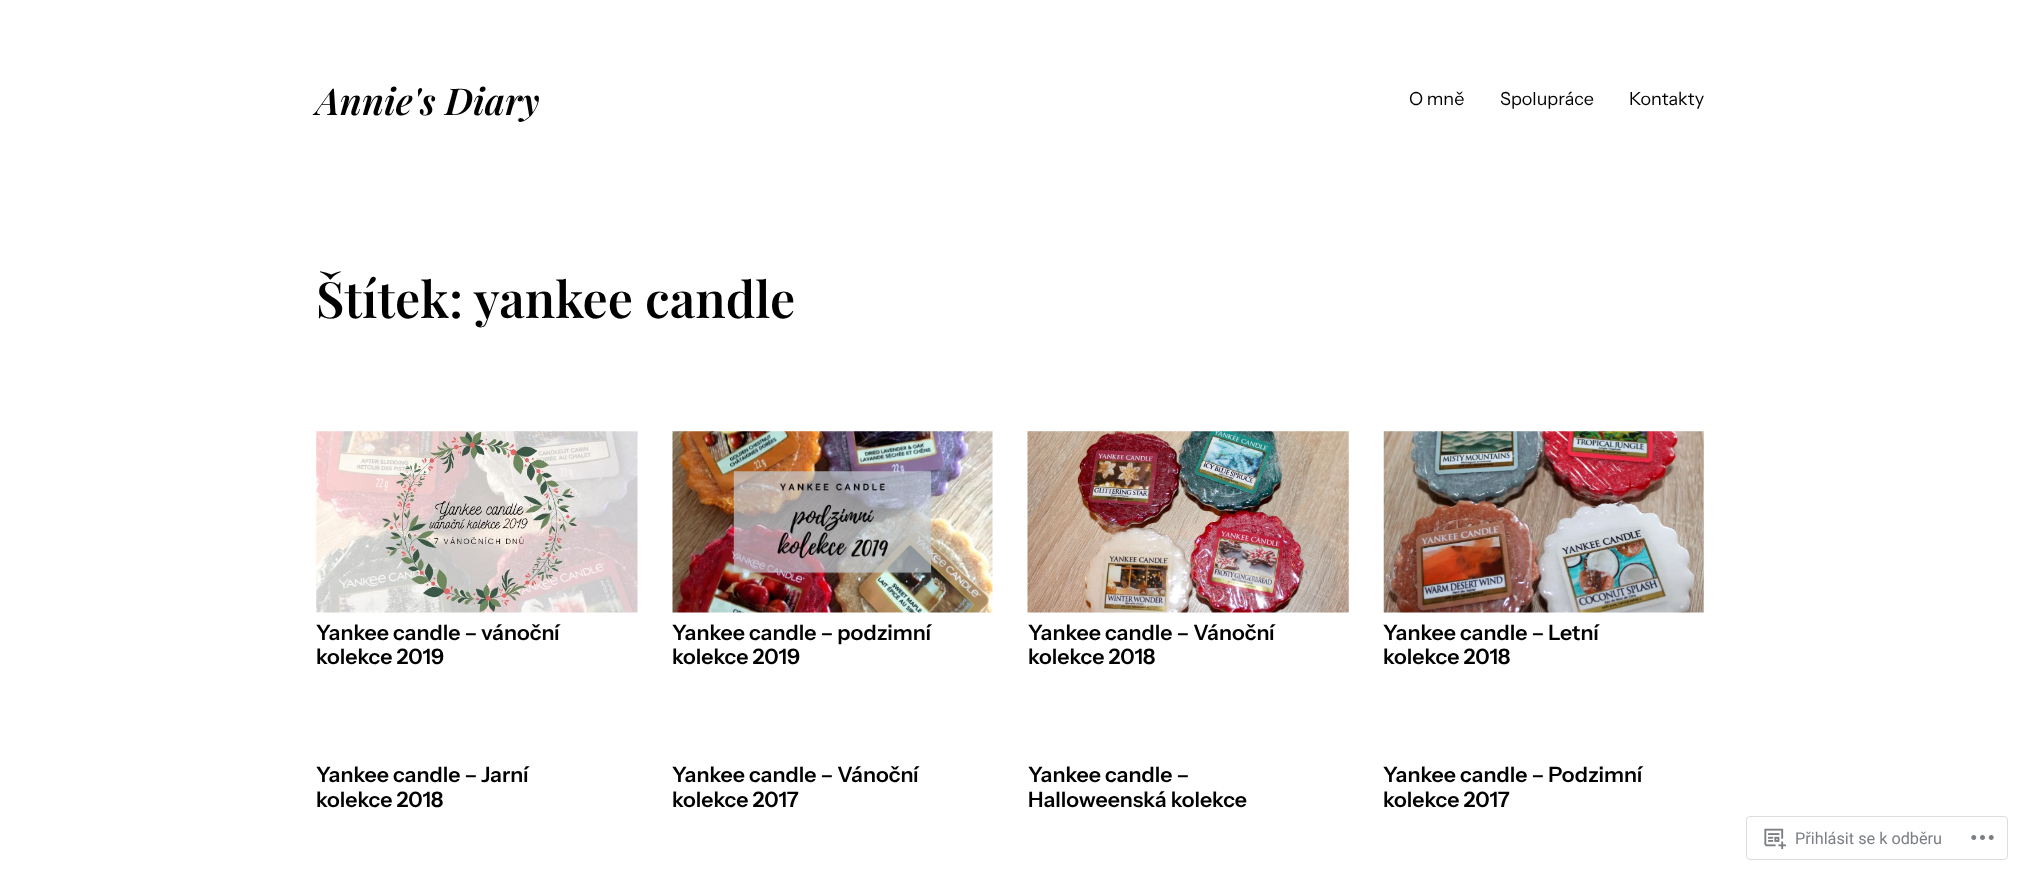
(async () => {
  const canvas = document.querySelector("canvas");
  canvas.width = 2019;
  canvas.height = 872;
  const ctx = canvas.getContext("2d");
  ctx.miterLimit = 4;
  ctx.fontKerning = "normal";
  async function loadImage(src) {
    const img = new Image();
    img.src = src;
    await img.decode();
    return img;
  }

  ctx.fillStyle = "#ffffff";
  ctx.fillRect(0, 0, 2019, 872);
  ctx.drawImage(await loadImage("img/1.png"), 316, 431, 322, 182);
  ctx.drawImage(await loadImage("img/2.png"), 672, 431, 321, 182);
  ctx.drawImage(await loadImage("img/3.png"), 1027, 431, 322, 182);
  ctx.drawImage(await loadImage("img/4.png"), 1383, 431, 321, 182);
  ctx.beginPath();
  ctx.roundRect(1746.5, 816.5, 261, 43, 3.5);
  ctx.strokeStyle = "#dddddf";
  ctx.stroke();
  ctx.drawImage(await loadImage("img/5.png"), 1764, 828, 22, 22);
  ctx.drawImage(await loadImage("img/6.png"), 1971, 835, 23, 5);
  ctx.font = "italic 600 37px Playfair Display";
  ctx.fillStyle = "#000000";
  ctx.fillText("Annie's Diary", 316, 115);
  ctx.font = "18px Instrument Sans";
  for (const [text, x, y] of [
    ["O mně", 1409, 105],
    ["Spolupráce", 1500, 105],
    ["Kontakty", 1629, 105],
  ]) {
    ctx.fillText(text, x, y);
  }
  ctx.font = "600 50px Playfair Display";
  ctx.fillText("Štítek:", 316, 318);
  ctx.fillText("yankee candle", 474, 318);
  ctx.font = "600 21.25px Instrument Sans";
  for (const [text, x, y] of [
    ["Yankee candle – vánoční", 316, 640],
    ["kolekce 2019", 316, 664],
    ["Yankee candle – podzimní", 672, 640],
    ["kolekce 2019", 672, 664],
    ["Yankee candle – Vánoční", 1028, 640],
    ["kolekce 2018", 1028, 664],
    ["Yankee candle – Letní", 1383, 640],
    ["kolekce 2018", 1383, 664],
    ["Yankee candle – Jarní", 316, 782],
    ["kolekce 2018", 316, 807],
    ["Yankee candle – Vánoční", 672, 782],
    ["kolekce 2017", 672, 807],
    ["Yankee candle –", 1028, 782],
    ["Halloweenská kolekce", 1028, 807],
    ["Yankee candle – Podzimní", 1383, 782],
    ["kolekce 2017", 1383, 807],
  ]) {
    ctx.fillText(text, x, y);
  }
  ctx.font = "16.25px Roboto";
  ctx.fillStyle = "#7b7f85";
  ctx.fillText("Přihlásit se k odběru", 1795, 844);
})();
